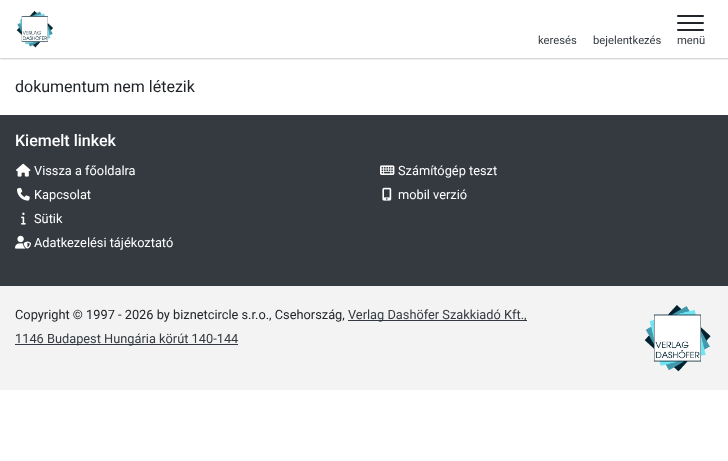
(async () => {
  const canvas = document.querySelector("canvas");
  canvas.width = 728;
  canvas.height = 461;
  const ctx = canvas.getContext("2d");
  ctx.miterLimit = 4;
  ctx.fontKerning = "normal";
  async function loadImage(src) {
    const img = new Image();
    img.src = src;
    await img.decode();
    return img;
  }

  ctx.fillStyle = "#ffffff";
  ctx.fillRect(0, 0, 728, 461);
  ctx.save();
  ctx.beginPath();
  ctx.rect(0, 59, 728, 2);
  ctx.clip();
  ctx.fillStyle = "#eeeeee";
  ctx.filter = "blur(0.5px)";
  ctx.beginPath();
  ctx.rect(1, 1, 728, 59);
  ctx.fill();
  ctx.filter = "none";
  ctx.restore();
  ctx.fillStyle = "#dadada";
  ctx.fillRect(0, 58, 728, 1);
  ctx.drawImage(await loadImage("img/1.png"), 16, 10, 37, 38);
  ctx.fillStyle = "#212529";
  ctx.beginPath();
  ctx.roundRect(677, 15, 27, 2, 1);
  ctx.fill();
  ctx.beginPath();
  ctx.roundRect(677, 22, 27, 2, 1);
  ctx.fill();
  ctx.beginPath();
  ctx.roundRect(677, 29, 27, 2, 1);
  ctx.fill();
  ctx.fillStyle = "#343a40";
  ctx.fillRect(0, 115, 728, 171);
  ctx.drawImage(await loadImage("img/2.png"), 16, 163, 15, 14);
  ctx.drawImage(await loadImage("img/3.png"), 17, 187, 13, 14);
  ctx.drawImage(await loadImage("img/4.png"), 21, 212, 5, 13);
  ctx.drawImage(await loadImage("img/5.png"), 15, 235, 16, 14);
  ctx.drawImage(await loadImage("img/6.png"), 380, 165, 15, 10);
  ctx.drawImage(await loadImage("img/7.png"), 382, 187, 10, 14);
  for (const [x, y, w, h, color] of [
    [0, 286, 728, 104, "#f3f3f3"],
    [348, 320, 179, 1, "#343a40"],
    [15, 344, 223, 1, "#343a40"],
  ]) {
    ctx.fillStyle = color;
    ctx.fillRect(x, y, w, h);
  }
  ctx.drawImage(await loadImage("img/8.png"), 644, 305, 67, 67);
  ctx.font = "11.25px Roboto";
  for (const [text, x, y] of [
    ["keresés", 538, 44],
    ["bejelentkezés", 593, 44],
    ["menü", 677, 44],
  ]) {
    ctx.fillText(text, x, y);
  }
  ctx.font = "16px Roboto";
  ctx.fillStyle = "#212529";
  ctx.fillText("dokumentum nem létezik", 15, 92);
  ctx.font = "500 16px Roboto";
  ctx.fillStyle = "#ffffff";
  ctx.fillText("Kiemelt linkek", 15, 146);
  ctx.font = "12.8px Roboto";
  for (const [text, x, y] of [
    ["Vissza a főoldalra", 34, 175],
    ["Kapcsolat", 34, 199],
    ["Sütik", 34, 223],
    ["Adatkezelési tájékoztató", 34, 247],
    ["Számítógép teszt", 398, 175],
    ["mobil verzió", 398, 199],
  ]) {
    ctx.fillText(text, x, y);
  }
  ctx.fillStyle = "#212529";
  ctx.fillText("Copyright © 1997 - 2026 by biznetcircle s.r.o., Csehország,", 15, 319);
  ctx.fillStyle = "#343a40";
  ctx.fillText("Verlag Dashöfer Szakkiadó Kft.,", 348, 319);
  ctx.fillText("1146 Budapest Hungária körút 140-144", 15, 343);
})();
